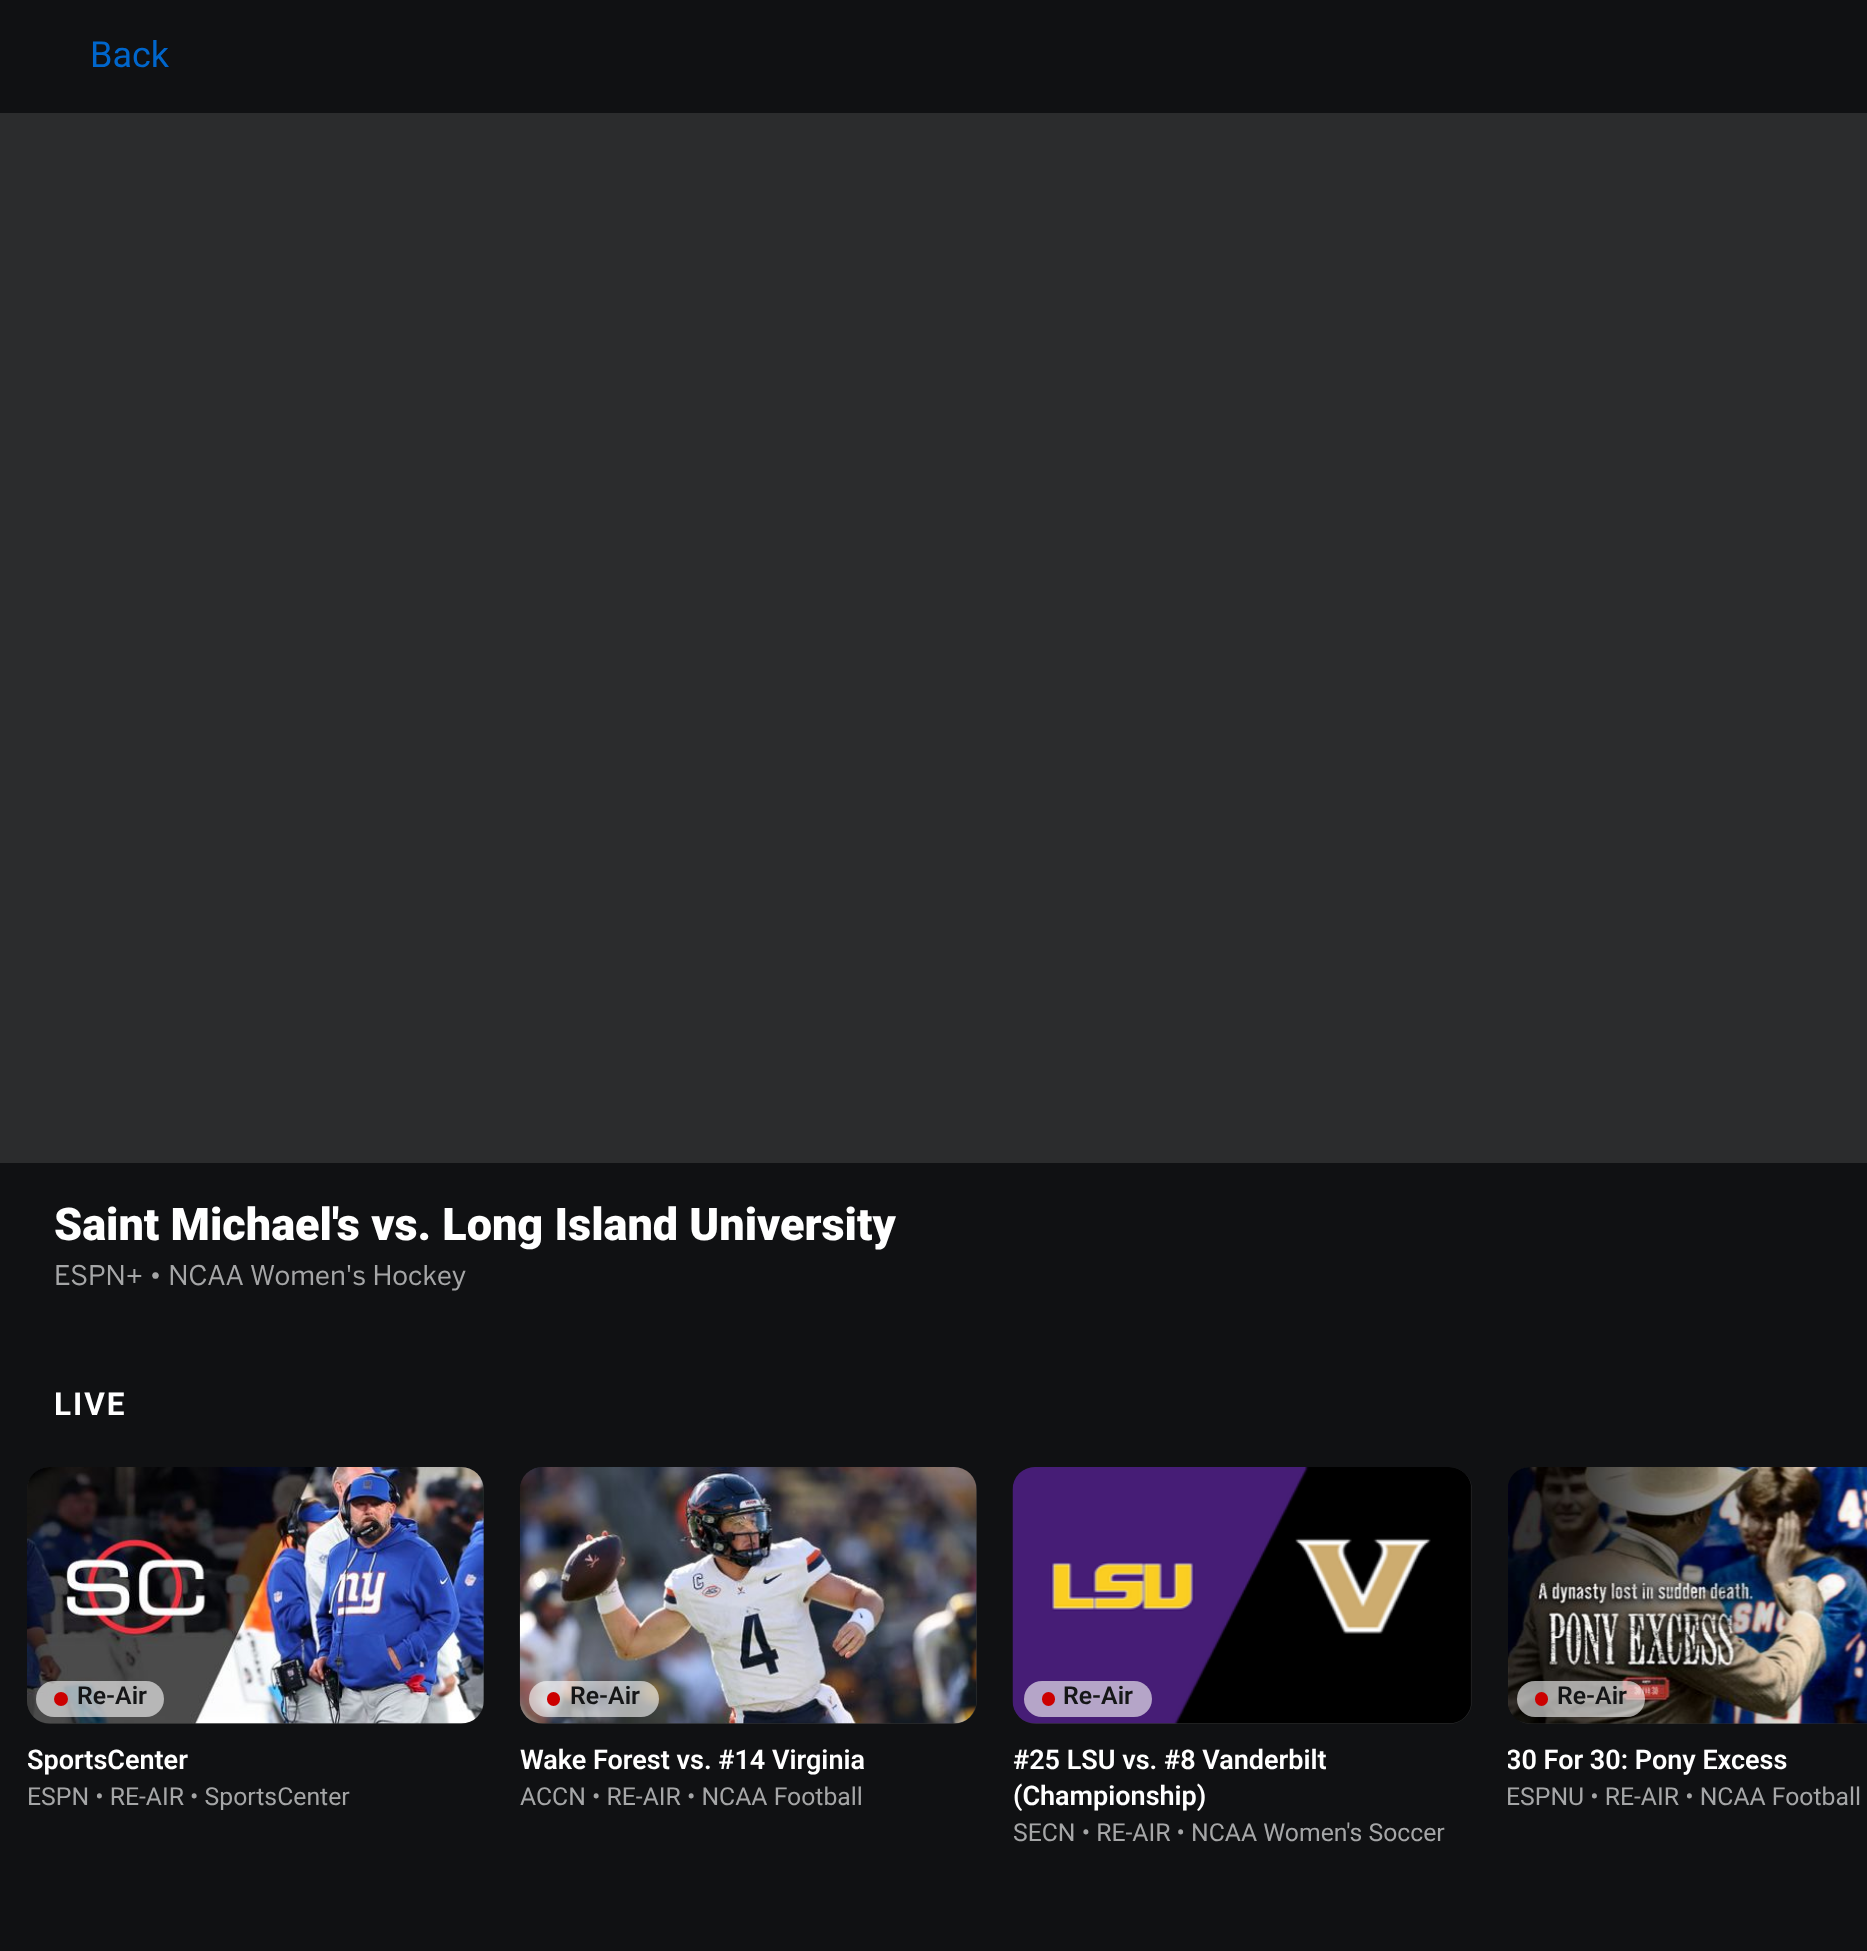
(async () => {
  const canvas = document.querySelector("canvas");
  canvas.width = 1867;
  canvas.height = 1951;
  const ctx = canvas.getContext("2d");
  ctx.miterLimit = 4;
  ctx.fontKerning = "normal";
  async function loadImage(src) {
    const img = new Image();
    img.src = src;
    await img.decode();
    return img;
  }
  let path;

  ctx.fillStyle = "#101113";
  ctx.fillRect(0, 0, 1867, 1951);
  ctx.fillStyle = "#2b2c2d";
  ctx.fillRect(0, 113, 1867, 1050);
  ctx.beginPath();
  ctx.roundRect(27, 1467, 457, 257, 23);
  ctx.fill();
  ctx.drawImage(await loadImage("img/1.png"), 27, 1467, 457, 257);
  ctx.fillStyle = "rgba(255, 255, 255, 0.6)";
  ctx.beginPath();
  ctx.roundRect(36, 1681, 128, 36, 18);
  ctx.fill();
  ctx.fillStyle = "#cc0000";
  ctx.beginPath();
  ctx.arc(61, 1699, 7, 0, Math.PI * 2);
  ctx.fill();
  ctx.fillStyle = "#2b2c2d";
  ctx.beginPath();
  ctx.roundRect(520, 1467, 457, 257, 23);
  ctx.fill();
  ctx.drawImage(await loadImage("img/2.png"), 519, 1467, 458, 257);
  ctx.fillStyle = "rgba(255, 255, 255, 0.6)";
  ctx.beginPath();
  ctx.roundRect(529, 1681, 130, 36, 18);
  ctx.fill();
  ctx.fillStyle = "#cc0000";
  ctx.beginPath();
  ctx.roundRect(547, 1692, 13, 14, 6.5);
  ctx.fill();
  ctx.fillStyle = "#2b2c2d";
  ctx.beginPath();
  ctx.roundRect(1013, 1467, 459, 257, 23);
  ctx.fill();
  ctx.drawImage(await loadImage("img/3.png"), 1012, 1467, 460, 257);
  ctx.fillStyle = "#b5a5c8";
  ctx.beginPath();
  ctx.roundRect(1024, 1681, 128, 36, 18);
  ctx.fill();
  ctx.fillStyle = "#cc0000";
  ctx.beginPath();
  ctx.roundRect(1042, 1692, 13, 14, 6.5);
  ctx.fill();
  ctx.fillStyle = "#2b2c2d";
  path = new Path2D("M1531 1467H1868V1724H1531C1518.5 1724 1508 1713.5 1508 1701V1490C1508 1477.5 1518.5 1467 1531 1467Z");
  ctx.fill(path);
  ctx.drawImage(await loadImage("img/4.png"), 1508, 1467, 359, 257);
  ctx.fillStyle = "rgba(255, 255, 255, 0.6)";
  ctx.beginPath();
  ctx.roundRect(1517, 1681, 128, 36, 18);
  ctx.fill();
  ctx.fillStyle = "#cc0000";
  ctx.beginPath();
  ctx.roundRect(1535, 1692, 13, 14, 6.5);
  ctx.fill();
  ctx.font = "36px Roboto";
  ctx.fillStyle = "#0066cc";
  ctx.fillText("Back", 90, 67);
  ctx.font = "900 45px Roboto";
  ctx.fillStyle = "#ffffff";
  ctx.fillText("Saint Michael's vs. Long Island University", 54, 1240);
  ctx.font = "27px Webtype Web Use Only";
  ctx.fillStyle = "#a5a6a7";
  ctx.fillText("ESPN+ • NCAA Women's Hockey", 54, 1285);
  ctx.letterSpacing = "2px";
  ctx.font = "bold 31.5px Roboto";
  ctx.fillStyle = "#ffffff";
  ctx.fillText("LIVE", 54, 1415);
  ctx.letterSpacing = "0px";
  ctx.font = "600 24.75px Roboto";
  ctx.fillStyle = "#151617";
  ctx.fillText("Re-Air", 77, 1704);
  ctx.font = "600 27px Roboto";
  ctx.fillStyle = "#ffffff";
  ctx.fillText("SportsCenter", 27, 1769);
  ctx.font = "24.75px Roboto";
  ctx.fillStyle = "#a5a6a7";
  ctx.fillText("ESPN • RE-AIR • SportsCenter", 27, 1805);
  ctx.font = "600 24.75px Roboto";
  ctx.fillStyle = "#151617";
  ctx.fillText("Re-Air", 570, 1704);
  ctx.font = "600 27px Roboto";
  ctx.fillStyle = "#ffffff";
  ctx.fillText("Wake Forest vs. #14 Virginia", 520, 1769);
  ctx.font = "24.75px Roboto";
  ctx.fillStyle = "#a5a6a7";
  ctx.fillText("ACCN • RE-AIR • NCAA Football", 520, 1805);
  ctx.font = "600 24.75px Roboto";
  ctx.fillStyle = "#151617";
  ctx.fillText("Re-Air", 1063, 1704);
  ctx.font = "600 27px Roboto";
  ctx.fillStyle = "#ffffff";
  ctx.fillText("#25 LSU vs. #8 Vanderbilt", 1013, 1769);
  ctx.fillText("(Championship)", 1013, 1805);
  ctx.font = "24.75px Roboto";
  ctx.fillStyle = "#a5a6a7";
  ctx.fillText("SECN • RE-AIR • NCAA Women's Soccer", 1013, 1841);
  ctx.font = "600 24.75px Roboto";
  ctx.fillStyle = "#151617";
  ctx.fillText("Re-Air", 1557, 1704);
  ctx.save();
  ctx.beginPath();
  ctx.rect(1508, 1742, 353, 36);
  ctx.clip();
  ctx.font = "600 27px Roboto";
  ctx.fillStyle = "#ffffff";
  ctx.fillText("30 For 30: Pony Excess", 1506, 1769);
  ctx.restore();
  ctx.font = "24.75px Roboto";
  ctx.fillStyle = "#a5a6a7";
  ctx.fillText("ESPNU • RE-AIR • NCAA Football", 1506, 1805);
})();
